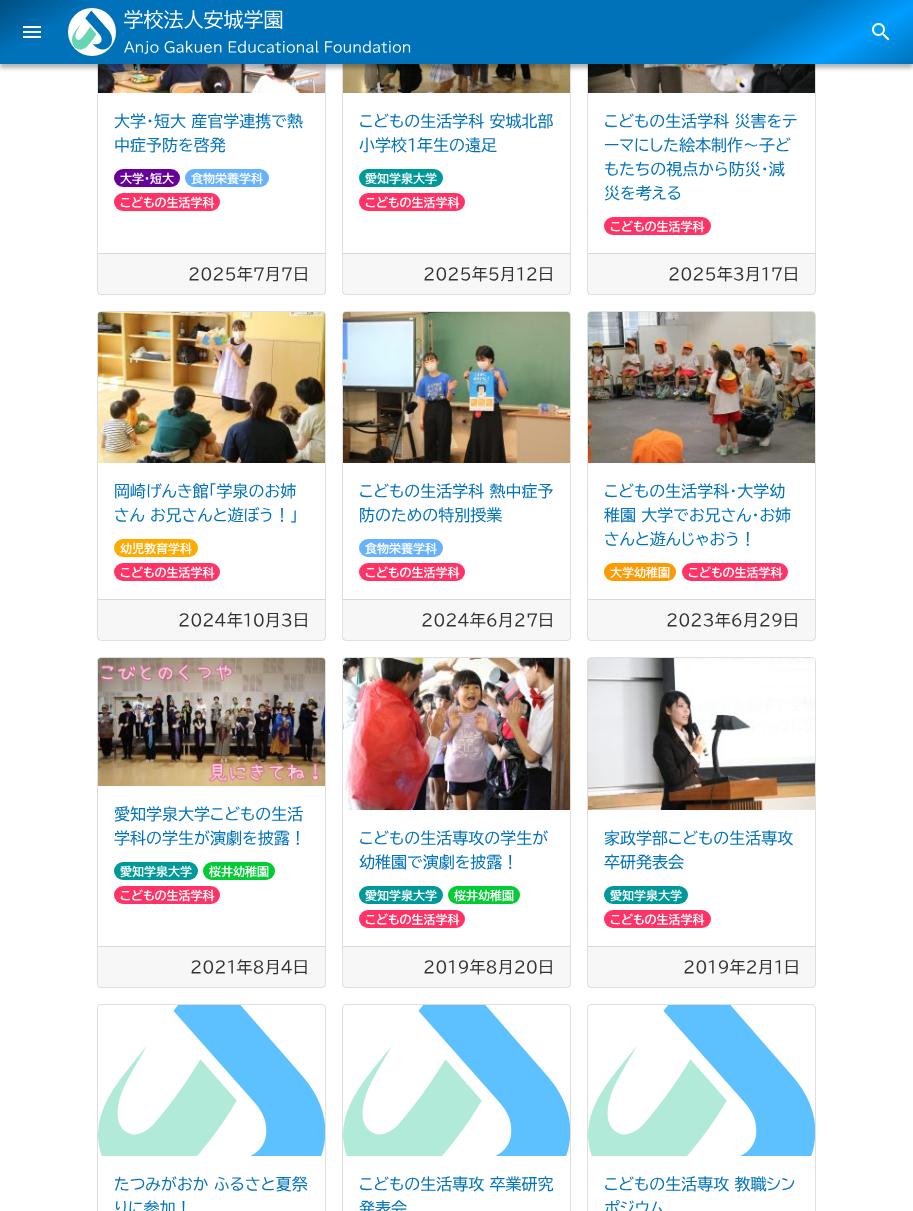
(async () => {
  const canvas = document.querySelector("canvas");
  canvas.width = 913;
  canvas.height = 1211;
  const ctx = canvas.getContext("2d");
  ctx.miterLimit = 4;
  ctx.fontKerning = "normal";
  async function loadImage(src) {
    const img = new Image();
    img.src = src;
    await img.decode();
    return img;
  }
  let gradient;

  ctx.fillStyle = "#ffffff";
  ctx.fillRect(0, 0, 913, 1211);
  ctx.beginPath();
  ctx.roundRect(97.5, -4.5, 228, 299, 3.5);
  ctx.strokeStyle = "#dfdfdf";
  ctx.stroke();
  ctx.drawImage(await loadImage("img/4.png"), 98, 64, 227, 29);
  ctx.beginPath();
  ctx.roundRect(342.5, -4.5, 228, 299, 3.5);
  ctx.stroke();
  ctx.drawImage(await loadImage("img/5.png"), 343, 64, 227, 29);
  ctx.beginPath();
  ctx.roundRect(587.5, -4.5, 228, 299, 3.5);
  ctx.stroke();
  ctx.drawImage(await loadImage("img/6.png"), 588, 64, 227, 29);
  ctx.fillStyle = "rgba(0, 0, 0, 0.3)";
  ctx.filter = "blur(2px)";
  ctx.beginPath();
  ctx.rect(0, 4, 913, 64);
  ctx.fill();
  ctx.filter = "none";
  gradient = ctx.createLinearGradient(329, -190, 584, 254);
  gradient.addColorStop(0, "#004e7f");
  gradient.addColorStop(0.1, "#0072ba");
  gradient.addColorStop(0.8, "#0072ba");
  gradient.addColorStop(0.9, "#009dff");
  gradient.addColorStop(1, "#0072ba");
  ctx.fillStyle = gradient;
  ctx.fillRect(0, 0, 913, 64);
  ctx.drawImage(await loadImage("img/1.png"), 23, 26, 18, 12);
  ctx.drawImage(await loadImage("img/2.png"), 68, 8, 343, 48);
  ctx.drawImage(await loadImage("img/3.png"), 872, 23, 18, 18);
  ctx.fillStyle = "#660099";
  ctx.beginPath();
  ctx.roundRect(114, 169, 66, 18, 9);
  ctx.fill();
  ctx.fillStyle = "#66b2ff";
  ctx.beginPath();
  ctx.roundRect(185, 169, 84, 18, 9);
  ctx.fill();
  ctx.fillStyle = "#ff3366";
  ctx.beginPath();
  ctx.roundRect(114, 193, 106, 18, 9);
  ctx.fill();
  ctx.fillStyle = "rgba(0, 0, 0, 0.03)";
  ctx.fillRect(98, 254, 227, 40);
  ctx.fillStyle = "#d8d8d8";
  ctx.fillRect(98, 253, 227, 1);
  ctx.fillStyle = "#009999";
  ctx.beginPath();
  ctx.roundRect(359, 169, 84, 18, 9);
  ctx.fill();
  ctx.fillStyle = "#ff3366";
  ctx.beginPath();
  ctx.roundRect(359, 193, 106, 18, 9);
  ctx.fill();
  ctx.fillStyle = "rgba(0, 0, 0, 0.03)";
  ctx.fillRect(343, 254, 227, 40);
  ctx.fillStyle = "#d8d8d8";
  ctx.fillRect(343, 253, 227, 1);
  ctx.fillStyle = "#ff3366";
  ctx.beginPath();
  ctx.roundRect(604, 217, 107, 18, 9);
  ctx.fill();
  ctx.fillStyle = "rgba(0, 0, 0, 0.03)";
  ctx.fillRect(588, 254, 227, 40);
  ctx.fillStyle = "#d8d8d8";
  ctx.fillRect(588, 253, 227, 1);
  ctx.beginPath();
  ctx.roundRect(97.5, 311.5, 228, 329, 3.5);
  ctx.stroke();
  ctx.drawImage(await loadImage("img/7.png"), 98, 312, 227, 151);
  ctx.fillStyle = "#ffaa00";
  ctx.beginPath();
  ctx.roundRect(114, 539, 84, 18, 9);
  ctx.fill();
  ctx.fillStyle = "#ff3366";
  ctx.beginPath();
  ctx.roundRect(114, 563, 106, 18, 9);
  ctx.fill();
  ctx.fillStyle = "rgba(0, 0, 0, 0.03)";
  ctx.fillRect(98, 600, 227, 40);
  ctx.fillStyle = "#d8d8d8";
  ctx.fillRect(98, 599, 227, 1);
  ctx.beginPath();
  ctx.roundRect(342.5, 311.5, 228, 329, 3.5);
  ctx.stroke();
  ctx.drawImage(await loadImage("img/8.png"), 343, 312, 227, 151);
  ctx.fillStyle = "#66b2ff";
  ctx.beginPath();
  ctx.roundRect(359, 539, 84, 18, 9);
  ctx.fill();
  ctx.fillStyle = "#ff3366";
  ctx.beginPath();
  ctx.roundRect(359, 563, 106, 18, 9);
  ctx.fill();
  ctx.fillStyle = "rgba(0, 0, 0, 0.03)";
  ctx.fillRect(343, 600, 227, 40);
  ctx.fillStyle = "#d8d8d8";
  ctx.fillRect(343, 599, 227, 1);
  ctx.beginPath();
  ctx.roundRect(587.5, 311.5, 228, 329, 3.5);
  ctx.stroke();
  ctx.drawImage(await loadImage("img/9.png"), 588, 312, 227, 151);
  ctx.fillStyle = "#ff9900";
  ctx.beginPath();
  ctx.roundRect(604, 563, 72, 18, 9);
  ctx.fill();
  ctx.fillStyle = "#ff3366";
  ctx.beginPath();
  ctx.roundRect(682, 563, 106, 18, 9);
  ctx.fill();
  ctx.fillStyle = "rgba(0, 0, 0, 0.03)";
  ctx.fillRect(588, 600, 227, 40);
  ctx.fillStyle = "#d8d8d8";
  ctx.fillRect(588, 599, 227, 1);
  ctx.beginPath();
  ctx.roundRect(97.5, 657.5, 228, 330, 3.5);
  ctx.stroke();
  ctx.drawImage(await loadImage("img/10.png"), 98, 658, 227, 128);
  ctx.fillStyle = "#009999";
  ctx.beginPath();
  ctx.roundRect(114, 862, 84, 18, 9);
  ctx.fill();
  ctx.fillStyle = "#00cc33";
  ctx.beginPath();
  ctx.roundRect(203, 862, 72, 18, 9);
  ctx.fill();
  ctx.fillStyle = "#ff3366";
  ctx.beginPath();
  ctx.roundRect(114, 886, 106, 18, 9);
  ctx.fill();
  ctx.fillStyle = "rgba(0, 0, 0, 0.03)";
  ctx.fillRect(98, 947, 227, 40);
  ctx.fillStyle = "#d8d8d8";
  ctx.fillRect(98, 946, 227, 1);
  ctx.beginPath();
  ctx.roundRect(342.5, 657.5, 228, 330, 3.5);
  ctx.stroke();
  ctx.drawImage(await loadImage("img/11.png"), 343, 658, 227, 152);
  ctx.fillStyle = "#009999";
  ctx.beginPath();
  ctx.roundRect(359, 886, 84, 18, 9);
  ctx.fill();
  ctx.fillStyle = "#00cc33";
  ctx.beginPath();
  ctx.roundRect(448, 886, 72, 18, 9);
  ctx.fill();
  ctx.fillStyle = "#ff3366";
  ctx.beginPath();
  ctx.roundRect(359, 910, 106, 18, 9);
  ctx.fill();
  ctx.fillStyle = "rgba(0, 0, 0, 0.03)";
  ctx.fillRect(343, 947, 227, 40);
  ctx.fillStyle = "#d8d8d8";
  ctx.fillRect(343, 946, 227, 1);
  ctx.beginPath();
  ctx.roundRect(587.5, 657.5, 228, 330, 3.5);
  ctx.stroke();
  ctx.drawImage(await loadImage("img/12.png"), 588, 658, 227, 152);
  ctx.fillStyle = "#009999";
  ctx.beginPath();
  ctx.roundRect(604, 886, 84, 18, 9);
  ctx.fill();
  ctx.fillStyle = "#ff3366";
  ctx.beginPath();
  ctx.roundRect(604, 910, 107, 18, 9);
  ctx.fill();
  ctx.fillStyle = "rgba(0, 0, 0, 0.03)";
  ctx.fillRect(588, 947, 227, 40);
  ctx.fillStyle = "#d8d8d8";
  ctx.fillRect(588, 946, 227, 1);
  ctx.beginPath();
  ctx.roundRect(97.5, 1004.5, 228, 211, 3.5);
  ctx.stroke();
  ctx.drawImage(await loadImage("img/13.png"), 98, 1005, 227, 151);
  ctx.beginPath();
  ctx.roundRect(342.5, 1004.5, 228, 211, 3.5);
  ctx.stroke();
  ctx.drawImage(await loadImage("img/13.png"), 343, 1005, 227, 151);
  ctx.beginPath();
  ctx.roundRect(587.5, 1004.5, 228, 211, 3.5);
  ctx.stroke();
  ctx.drawImage(await loadImage("img/13.png"), 588, 1005, 227, 151);
  ctx.font = "16px BIZ UDPGothic";
  ctx.fillStyle = "#0072ba";
  ctx.fillText("大学・短大 産官学連携で熱", 114, 127);
  ctx.fillText("中症予防を啓発", 114, 151);
  ctx.font = "bold 12px BIZ UDPGothic";
  ctx.fillStyle = "#ffffff";
  for (const [text, x, y] of [
    ["大学・短大", 120, 183],
    ["食物栄養学科", 191, 183],
    ["こどもの生活学科", 120, 207],
  ]) {
    ctx.fillText(text, x, y);
  }
  ctx.font = "16px BIZ UDPGothic";
  ctx.fillStyle = "#333333";
  ctx.fillText("2025年7月7日", 188, 280);
  ctx.fillStyle = "#0072ba";
  ctx.fillText("こどもの生活学科 安城北部", 359, 127);
  ctx.fillText("小学校１年生の遠足", 359, 151);
  ctx.font = "bold 12px BIZ UDPGothic";
  ctx.fillStyle = "#ffffff";
  ctx.fillText("愛知学泉大学", 365, 183);
  ctx.fillText("こどもの生活学科", 365, 207);
  ctx.font = "16px BIZ UDPGothic";
  ctx.fillStyle = "#333333";
  ctx.fillText("2025年5月12日", 423, 280);
  ctx.fillStyle = "#0072ba";
  for (const [text, x, y] of [
    ["こどもの生活学科 災害をテ", 604, 127],
    ["ーマにした絵本制作～子ど", 604, 151],
    ["もたちの視点から防災・減", 604, 175],
    ["災を考える", 604, 199],
  ]) {
    ctx.fillText(text, x, y);
  }
  ctx.font = "bold 12px BIZ UDPGothic";
  ctx.fillStyle = "#ffffff";
  ctx.fillText("こどもの生活学科", 610, 231);
  ctx.font = "16px BIZ UDPGothic";
  ctx.fillStyle = "#333333";
  ctx.fillText("2025年3月17日", 668, 280);
  ctx.fillStyle = "#0072ba";
  ctx.fillText("岡崎げんき館「学泉のお姉", 114, 497);
  ctx.fillText("さん お兄さんと遊ぼう！」", 114, 521);
  ctx.font = "bold 12px BIZ UDPGothic";
  ctx.fillStyle = "#ffffff";
  ctx.fillText("幼児教育学科", 120, 553);
  ctx.fillText("こどもの生活学科", 120, 577);
  ctx.font = "16px BIZ UDPGothic";
  ctx.fillStyle = "#333333";
  ctx.fillText("2024年10月3日", 178, 626);
  ctx.fillStyle = "#0072ba";
  ctx.fillText("こどもの生活学科 熱中症予", 359, 497);
  ctx.fillText("防のための特別授業", 359, 521);
  ctx.font = "bold 12px BIZ UDPGothic";
  ctx.fillStyle = "#ffffff";
  ctx.fillText("食物栄養学科", 365, 553);
  ctx.fillText("こどもの生活学科", 365, 577);
  ctx.font = "16px BIZ UDPGothic";
  ctx.fillStyle = "#333333";
  ctx.fillText("2024年6月27日", 421, 626);
  ctx.fillStyle = "#0072ba";
  for (const [text, x, y] of [
    ["こどもの生活学科・大学幼", 604, 497],
    ["稚園 大学でお兄さん・お姉", 604, 521],
    ["さんと遊んじゃおう！", 604, 545],
  ]) {
    ctx.fillText(text, x, y);
  }
  ctx.font = "bold 12px BIZ UDPGothic";
  ctx.fillStyle = "#ffffff";
  ctx.fillText("大学幼稚園", 610, 577);
  ctx.fillText("こどもの生活学科", 688, 577);
  ctx.font = "16px BIZ UDPGothic";
  ctx.fillStyle = "#333333";
  ctx.fillText("2023年6月29日", 666, 626);
  ctx.fillStyle = "#0072ba";
  ctx.fillText("愛知学泉大学こどもの生活", 114, 820);
  ctx.fillText("学科の学生が演劇を披露！", 114, 844);
  ctx.font = "bold 12px BIZ UDPGothic";
  ctx.fillStyle = "#ffffff";
  for (const [text, x, y] of [
    ["愛知学泉大学", 120, 876],
    ["桜井幼稚園", 209, 876],
    ["こどもの生活学科", 120, 900],
  ]) {
    ctx.fillText(text, x, y);
  }
  ctx.font = "16px BIZ UDPGothic";
  ctx.fillStyle = "#333333";
  ctx.fillText("2021年8月4日", 190, 973);
  ctx.fillStyle = "#0072ba";
  ctx.fillText("こどもの生活専攻の学生が", 359, 844);
  ctx.fillText("幼稚園で演劇を披露！", 359, 868);
  ctx.font = "bold 12px BIZ UDPGothic";
  ctx.fillStyle = "#ffffff";
  for (const [text, x, y] of [
    ["愛知学泉大学", 365, 900],
    ["桜井幼稚園", 454, 900],
    ["こどもの生活学科", 365, 924],
  ]) {
    ctx.fillText(text, x, y);
  }
  ctx.font = "16px BIZ UDPGothic";
  ctx.fillStyle = "#333333";
  ctx.fillText("2019年8月20日", 423, 973);
  ctx.fillStyle = "#0072ba";
  ctx.fillText("家政学部こどもの生活専攻", 604, 844);
  ctx.fillText("卒研発表会", 604, 868);
  ctx.font = "bold 12px BIZ UDPGothic";
  ctx.fillStyle = "#ffffff";
  ctx.fillText("愛知学泉大学", 610, 900);
  ctx.fillText("こどもの生活学科", 610, 924);
  ctx.font = "16px BIZ UDPGothic";
  ctx.fillStyle = "#333333";
  ctx.fillText("2019年2月1日", 683, 973);
  ctx.fillStyle = "#0072ba";
  for (const [text, x, y] of [
    ["たつみがおか ふるさと夏祭", 114, 1190],
    ["りに参加！", 114, 1214],
    ["こどもの生活専攻 卒業研究", 359, 1190],
    ["発表会", 359, 1214],
    ["こどもの生活専攻 教職シン", 604, 1190],
    ["ポジウム", 604, 1214],
  ]) {
    ctx.fillText(text, x, y);
  }
})();
